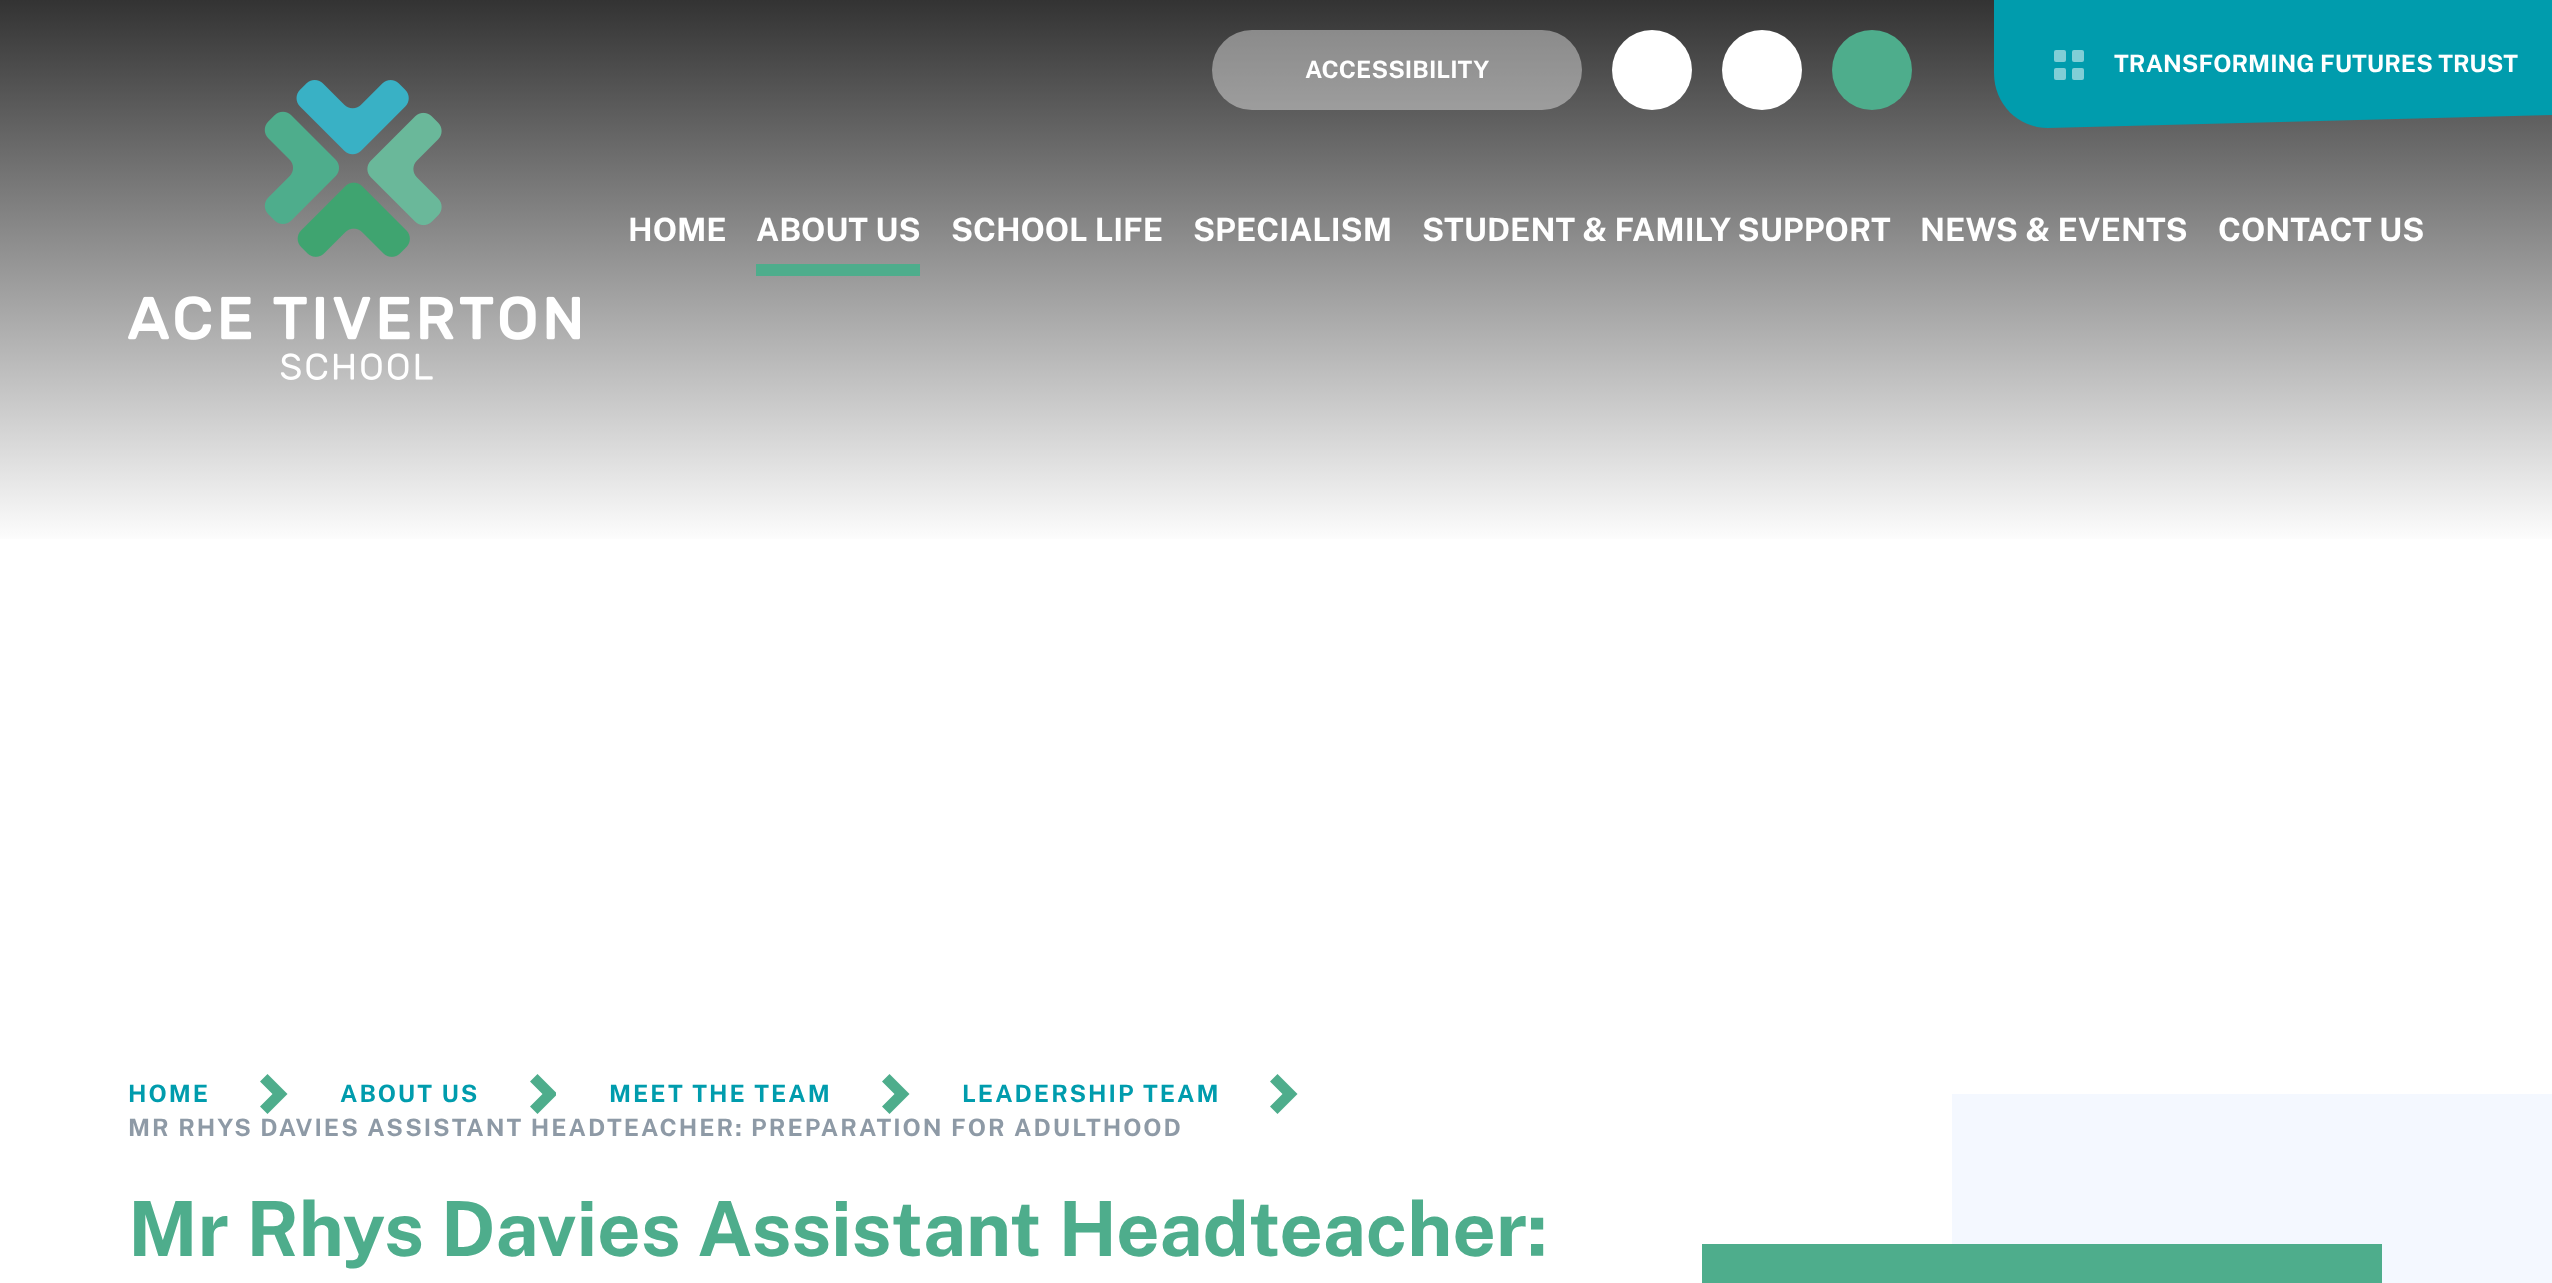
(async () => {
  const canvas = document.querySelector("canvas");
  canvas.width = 2552;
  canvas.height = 1283;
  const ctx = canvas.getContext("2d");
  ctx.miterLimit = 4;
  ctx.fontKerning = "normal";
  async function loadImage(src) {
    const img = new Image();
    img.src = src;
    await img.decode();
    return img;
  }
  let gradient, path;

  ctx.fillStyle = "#ffffff";
  ctx.fillRect(0, 0, 2552, 1283);
  gradient = ctx.createLinearGradient(1276, 546, 1276, 0);
  gradient.addColorStop(0, "#ffffff");
  gradient.addColorStop(1, "#333333");
  ctx.fillStyle = gradient;
  ctx.fillRect(0, 0, 2552, 539);
  ctx.drawImage(await loadImage("img/1.png"), 128, 80, 452, 300);
  ctx.fillStyle = "rgba(255, 255, 255, 0.4)";
  ctx.beginPath();
  ctx.roundRect(1212, 30, 370, 80, 40);
  ctx.fill();
  ctx.fillStyle = "#ffffff";
  ctx.beginPath();
  ctx.arc(1652, 70, 40, 0, Math.PI * 2);
  ctx.fill();
  ctx.beginPath();
  ctx.arc(1762, 70, 40, 0, Math.PI * 2);
  ctx.fill();
  ctx.fillStyle = "#4ead8c";
  ctx.beginPath();
  ctx.arc(1872, 70, 40, 0, Math.PI * 2);
  ctx.fill();
  ctx.fillStyle = "#009cad";
  path = new Path2D("M1994 73V0H2552V115L2048 128C2018 128 1994 104 1994 73Z");
  ctx.fill(path);
  ctx.fillStyle = "#80ced6";
  ctx.beginPath();
  ctx.roundRect(2054, 50, 12, 12, 2);
  ctx.fill();
  ctx.beginPath();
  ctx.roundRect(2054, 68, 12, 12, 2);
  ctx.fill();
  ctx.beginPath();
  ctx.roundRect(2072, 50, 12, 12, 2);
  ctx.fill();
  ctx.beginPath();
  ctx.roundRect(2072, 68, 12, 12, 2);
  ctx.fill();
  ctx.fillStyle = "#4ead8c";
  ctx.fillRect(756, 264, 164, 12);
  ctx.fillStyle = "#f4f8ff";
  ctx.fillRect(1952, 1094, 600, 189);
  ctx.fillStyle = "#4ead8c";
  path = new Path2D("M260 1081.5L267.5 1074L287.5 1094L267.5 1114L260 1106.5L272.5 1094Z");
  ctx.fill(path);
  ctx.save();
  ctx.beginPath();
  ctx.rect(530, 1074, 26, 40);
  ctx.clip();
  path = new Path2D("M530 1081.5L537.5 1074L557.5 1094L537.5 1114L530 1106.5L542.5 1094Z");
  ctx.fill(path);
  ctx.restore();
  path = new Path2D("M882 1081.5L889.5 1074L909.5 1094L889.5 1114L882 1106.5L894.5 1094Z");
  ctx.fill(path);
  path = new Path2D("M1270 1081.5L1277.5 1074L1297.5 1094L1277.5 1114L1270 1106.5L1282.5 1094Z");
  ctx.fill(path);
  ctx.fillRect(1702, 1244, 680, 39);
  ctx.font = "100 24px Public Sans";
  ctx.fillStyle = "#ffffff";
  ctx.fillText("ACCESSIBILITY", 1305, 78);
  ctx.fillText("TRANSFORMING FUTURES TRUST", 2114, 72);
  ctx.font = "100 32px Public Sans";
  for (const [text, x, y] of [
    ["HOME", 628, 241],
    ["ABOUT US", 756, 241],
    ["SCHOOL LIFE", 951, 241],
    ["SPECIALISM", 1193, 241],
    ["STUDENT & FAMILY SUPPORT", 1422, 241],
    ["NEWS & EVENTS", 1920, 241],
    ["CONTACT US", 2218, 241],
  ]) {
    ctx.fillText(text, x, y);
  }
  ctx.letterSpacing = "2px";
  ctx.font = "100 24px Public Sans";
  ctx.fillStyle = "#009cad";
  for (const [text, x, y] of [
    ["HOME", 128, 1102],
    ["ABOUT US", 340, 1102],
    ["MEET THE TEAM", 609, 1102],
    ["LEADERSHIP TEAM", 962, 1102],
  ]) {
    ctx.fillText(text, x, y);
  }
  ctx.fillStyle = "#8e9aa6";
  ctx.fillText("MR RHYS DAVIES ASSISTANT HEADTEACHER: PREPARATION FOR ADULTHOOD", 128, 1136);
  ctx.letterSpacing = "0px";
  ctx.font = "100 76px Public Sans";
  ctx.fillStyle = "#4ead8c";
  ctx.fillText("Mr Rhys Davies Assistant Headteacher:", 128, 1256);
})();
